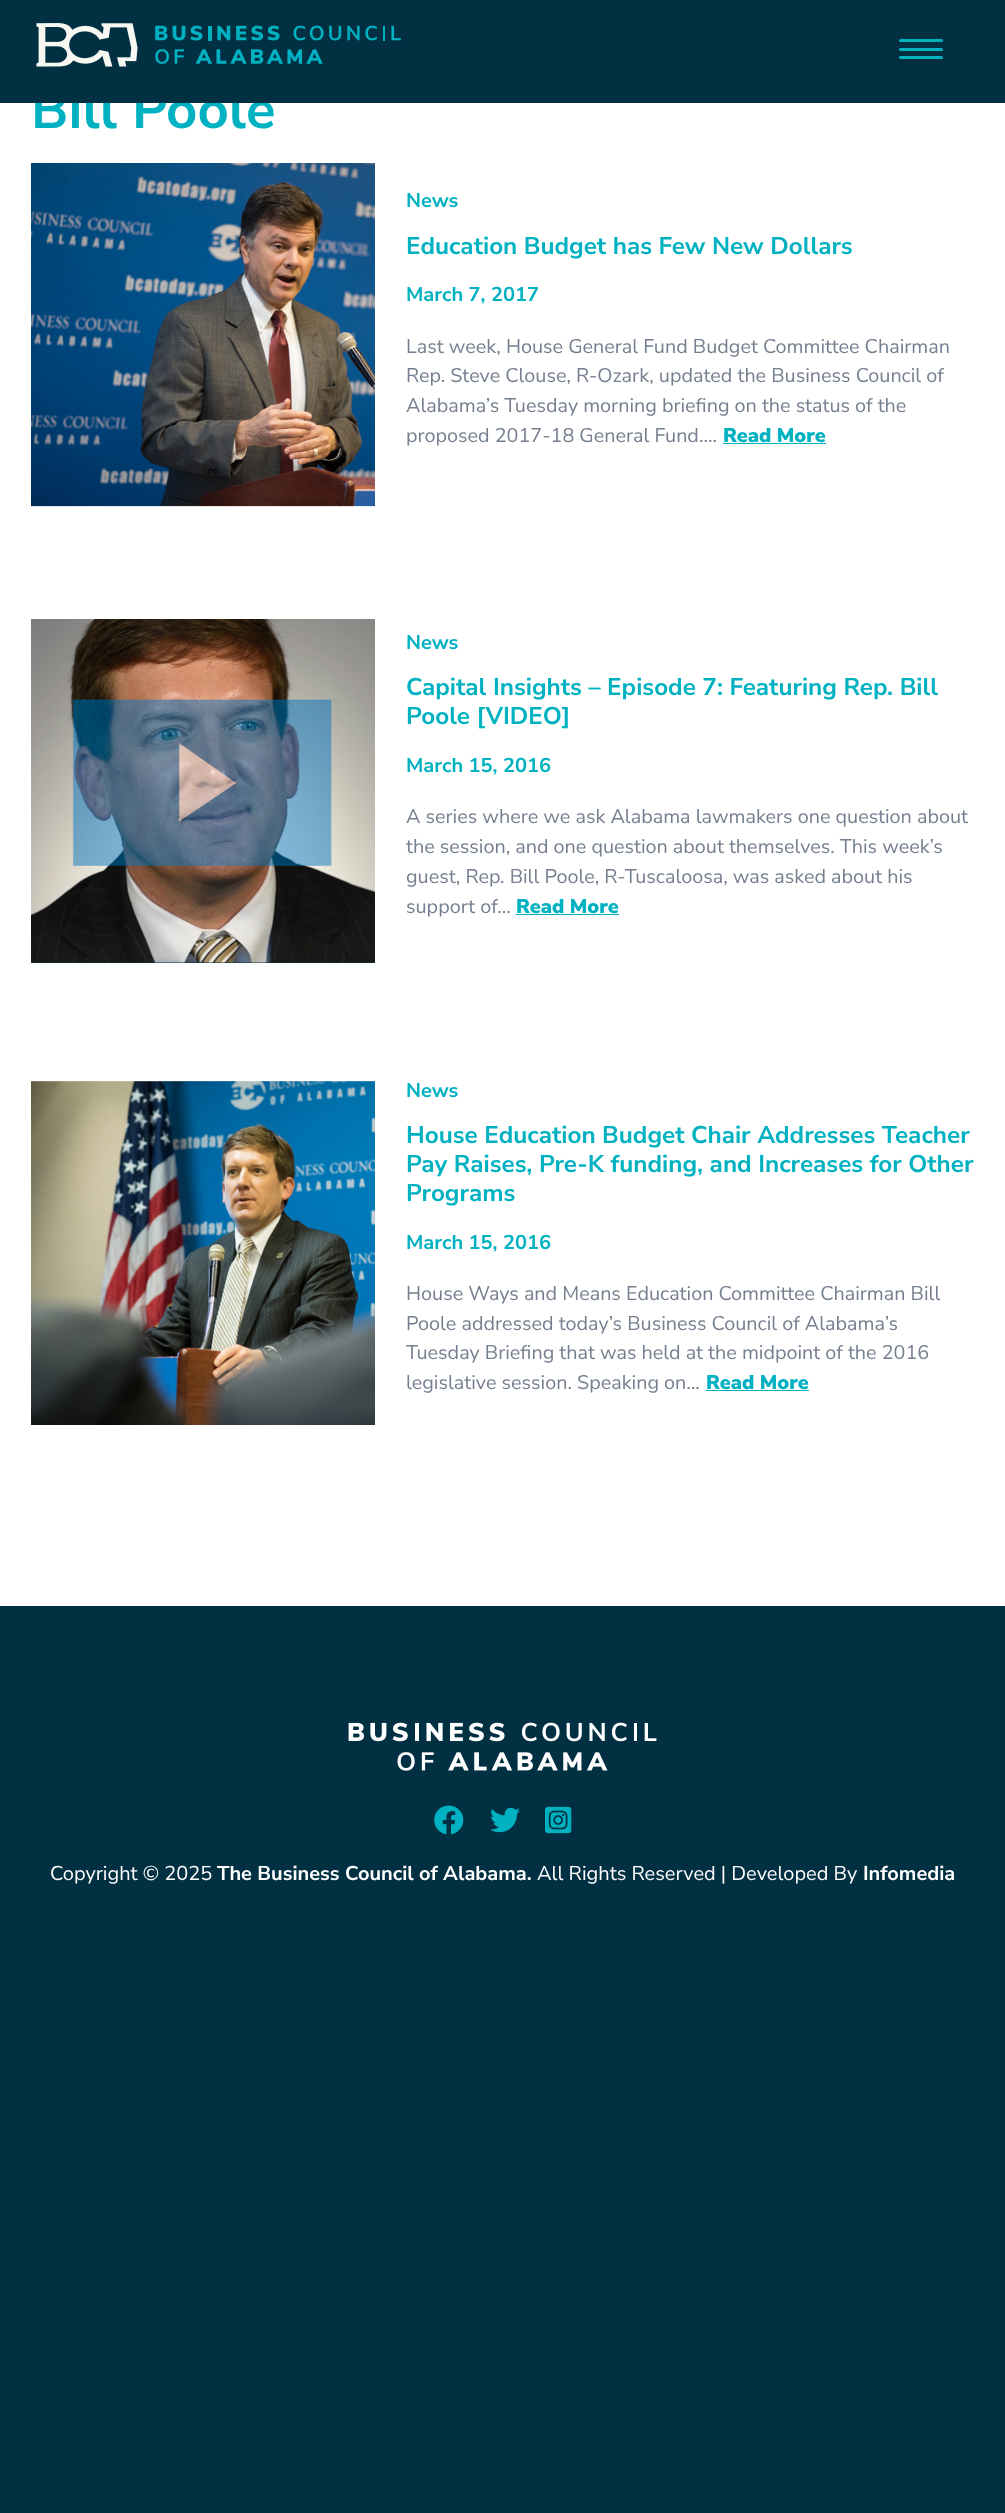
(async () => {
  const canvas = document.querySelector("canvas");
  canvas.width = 1005;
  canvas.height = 2513;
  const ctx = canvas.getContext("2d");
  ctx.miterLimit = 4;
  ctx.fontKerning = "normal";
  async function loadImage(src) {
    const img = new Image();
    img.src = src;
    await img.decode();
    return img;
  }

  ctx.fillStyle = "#003042";
  ctx.fillRect(0, 0, 1005, 2513);
  ctx.fillStyle = "#00b2c1";
  ctx.beginPath();
  ctx.roundRect(899, 48, 44, 3, 1.5);
  ctx.fill();
  ctx.beginPath();
  ctx.roundRect(899, 39, 44, 3, 1.5);
  ctx.fill();
  ctx.beginPath();
  ctx.roundRect(899, 56, 44, 3, 1.5);
  ctx.fill();
  ctx.fillStyle = "#ffffff";
  ctx.fillRect(0, 103, 1005, 1503);
  ctx.drawImage(await loadImage("img/1.png"), 36, 23, 365, 44);
  ctx.drawImage(await loadImage("img/2.png"), 31, 163, 344, 344);
  ctx.fillStyle = "#00b2c1";
  ctx.fillRect(723, 443, 103, 1);
  ctx.fillStyle = "#003042";
  ctx.fillRect(31, 962, 344, 1);
  ctx.drawImage(await loadImage("img/3.png"), 31, 619, 344, 344);
  ctx.fillStyle = "#00b2c1";
  ctx.fillRect(516, 914, 103, 1);
  ctx.drawImage(await loadImage("img/4.png"), 31, 1081, 344, 344);
  ctx.fillRect(706, 1390, 103, 1);
  ctx.drawImage(await loadImage("img/5.png"), 348, 1722, 309, 49);
  ctx.drawImage(await loadImage("img/6.png"), 434, 1805, 30, 30);
  ctx.drawImage(await loadImage("img/7.png"), 490, 1807, 30, 26);
  ctx.drawImage(await loadImage("img/8.png"), 545, 1806, 27, 28);
  ctx.font = "bold 54.5px Nunito Sans";
  ctx.fillText("Bill Poole", 31, 128);
  ctx.fillStyle = "#003042";
  ctx.fillRect(35, 89, 234, 14);
  ctx.font = "bold 20px Nunito Sans";
  ctx.fillStyle = "#00b2c1";
  ctx.fillText("News", 406, 207);
  ctx.font = "bold 24.25px Nunito Sans";
  ctx.fillText("Education Budget has Few New Dollars", 406, 254);
  ctx.font = "bold 20px Nunito Sans";
  ctx.fillText("March 7, 2017", 406, 301);
  ctx.font = "19.8px Nunito Sans";
  ctx.fillStyle = "#757f8f";
  for (const [text, x, y] of [
    ["Last week, House General Fund Budget Committee Chairman", 406, 353],
    ["Rep. Steve Clouse, R-Ozark, updated the Business Council of", 406, 382],
    ["Alabama’s Tuesday morning briefing on the status of the", 406, 412],
    ["proposed 2017-18 General Fund….", 406, 442],
  ]) {
    ctx.fillText(text, x, y);
  }
  ctx.font = "900 19.8px Nunito Sans";
  ctx.fillStyle = "#00b2c1";
  ctx.fillText("Read More", 723, 442);
  ctx.font = "bold 20px Nunito Sans";
  ctx.fillText("News", 406, 649);
  ctx.font = "bold 24.25px Nunito Sans";
  ctx.fillText("Capital Insights – Episode 7: Featuring Rep. Bill", 406, 695);
  ctx.fillText("Poole [VIDEO]", 406, 724);
  ctx.font = "bold 20px Nunito Sans";
  ctx.fillText("March 15, 2016", 406, 772);
  ctx.font = "19.8px Nunito Sans";
  ctx.fillStyle = "#757f8f";
  for (const [text, x, y] of [
    ["A series where we ask Alabama lawmakers one question about", 406, 823],
    ["the session, and one question about themselves. This week’s", 406, 853],
    ["guest, Rep. Bill Poole, R-Tuscaloosa, was asked about his", 406, 883],
    ["support of…", 406, 913],
  ]) {
    ctx.fillText(text, x, y);
  }
  ctx.font = "900 19.8px Nunito Sans";
  ctx.fillStyle = "#00b2c1";
  ctx.fillText("Read More", 516, 913);
  ctx.font = "bold 20px Nunito Sans";
  ctx.fillText("News", 406, 1097);
  ctx.font = "bold 24.25px Nunito Sans";
  for (const [text, x, y] of [
    ["House Education Budget Chair Addresses Teacher", 406, 1143],
    ["Pay Raises, Pre-K funding, and Increases for Other", 406, 1172],
    ["Programs", 406, 1201],
  ]) {
    ctx.fillText(text, x, y);
  }
  ctx.font = "bold 20px Nunito Sans";
  ctx.fillText("March 15, 2016", 406, 1249);
  ctx.font = "19.8px Nunito Sans";
  ctx.fillStyle = "#757f8f";
  for (const [text, x, y] of [
    ["House Ways and Means Education Committee Chairman Bill", 406, 1300],
    ["Poole addressed today’s Business Council of Alabama’s", 406, 1330],
    ["Tuesday Briefing that was held at the midpoint of the 2016", 406, 1359],
    ["legislative session. Speaking on…", 406, 1389],
  ]) {
    ctx.fillText(text, x, y);
  }
  ctx.font = "900 19.8px Nunito Sans";
  ctx.fillStyle = "#00b2c1";
  ctx.fillText("Read More", 706, 1389);
  ctx.font = "20px Nunito Sans";
  ctx.fillStyle = "#ffffff";
  ctx.fillText("Copyright © 2025", 50, 1880);
  ctx.font = "bold 20px Nunito Sans";
  ctx.fillText("The Business Council of Alabama.", 217, 1880);
  ctx.font = "20px Nunito Sans";
  ctx.fillText("All Rights Reserved | Developed By", 537, 1880);
  ctx.font = "bold 20px Nunito Sans";
  ctx.fillText("Infomedia", 863, 1880);
})();
